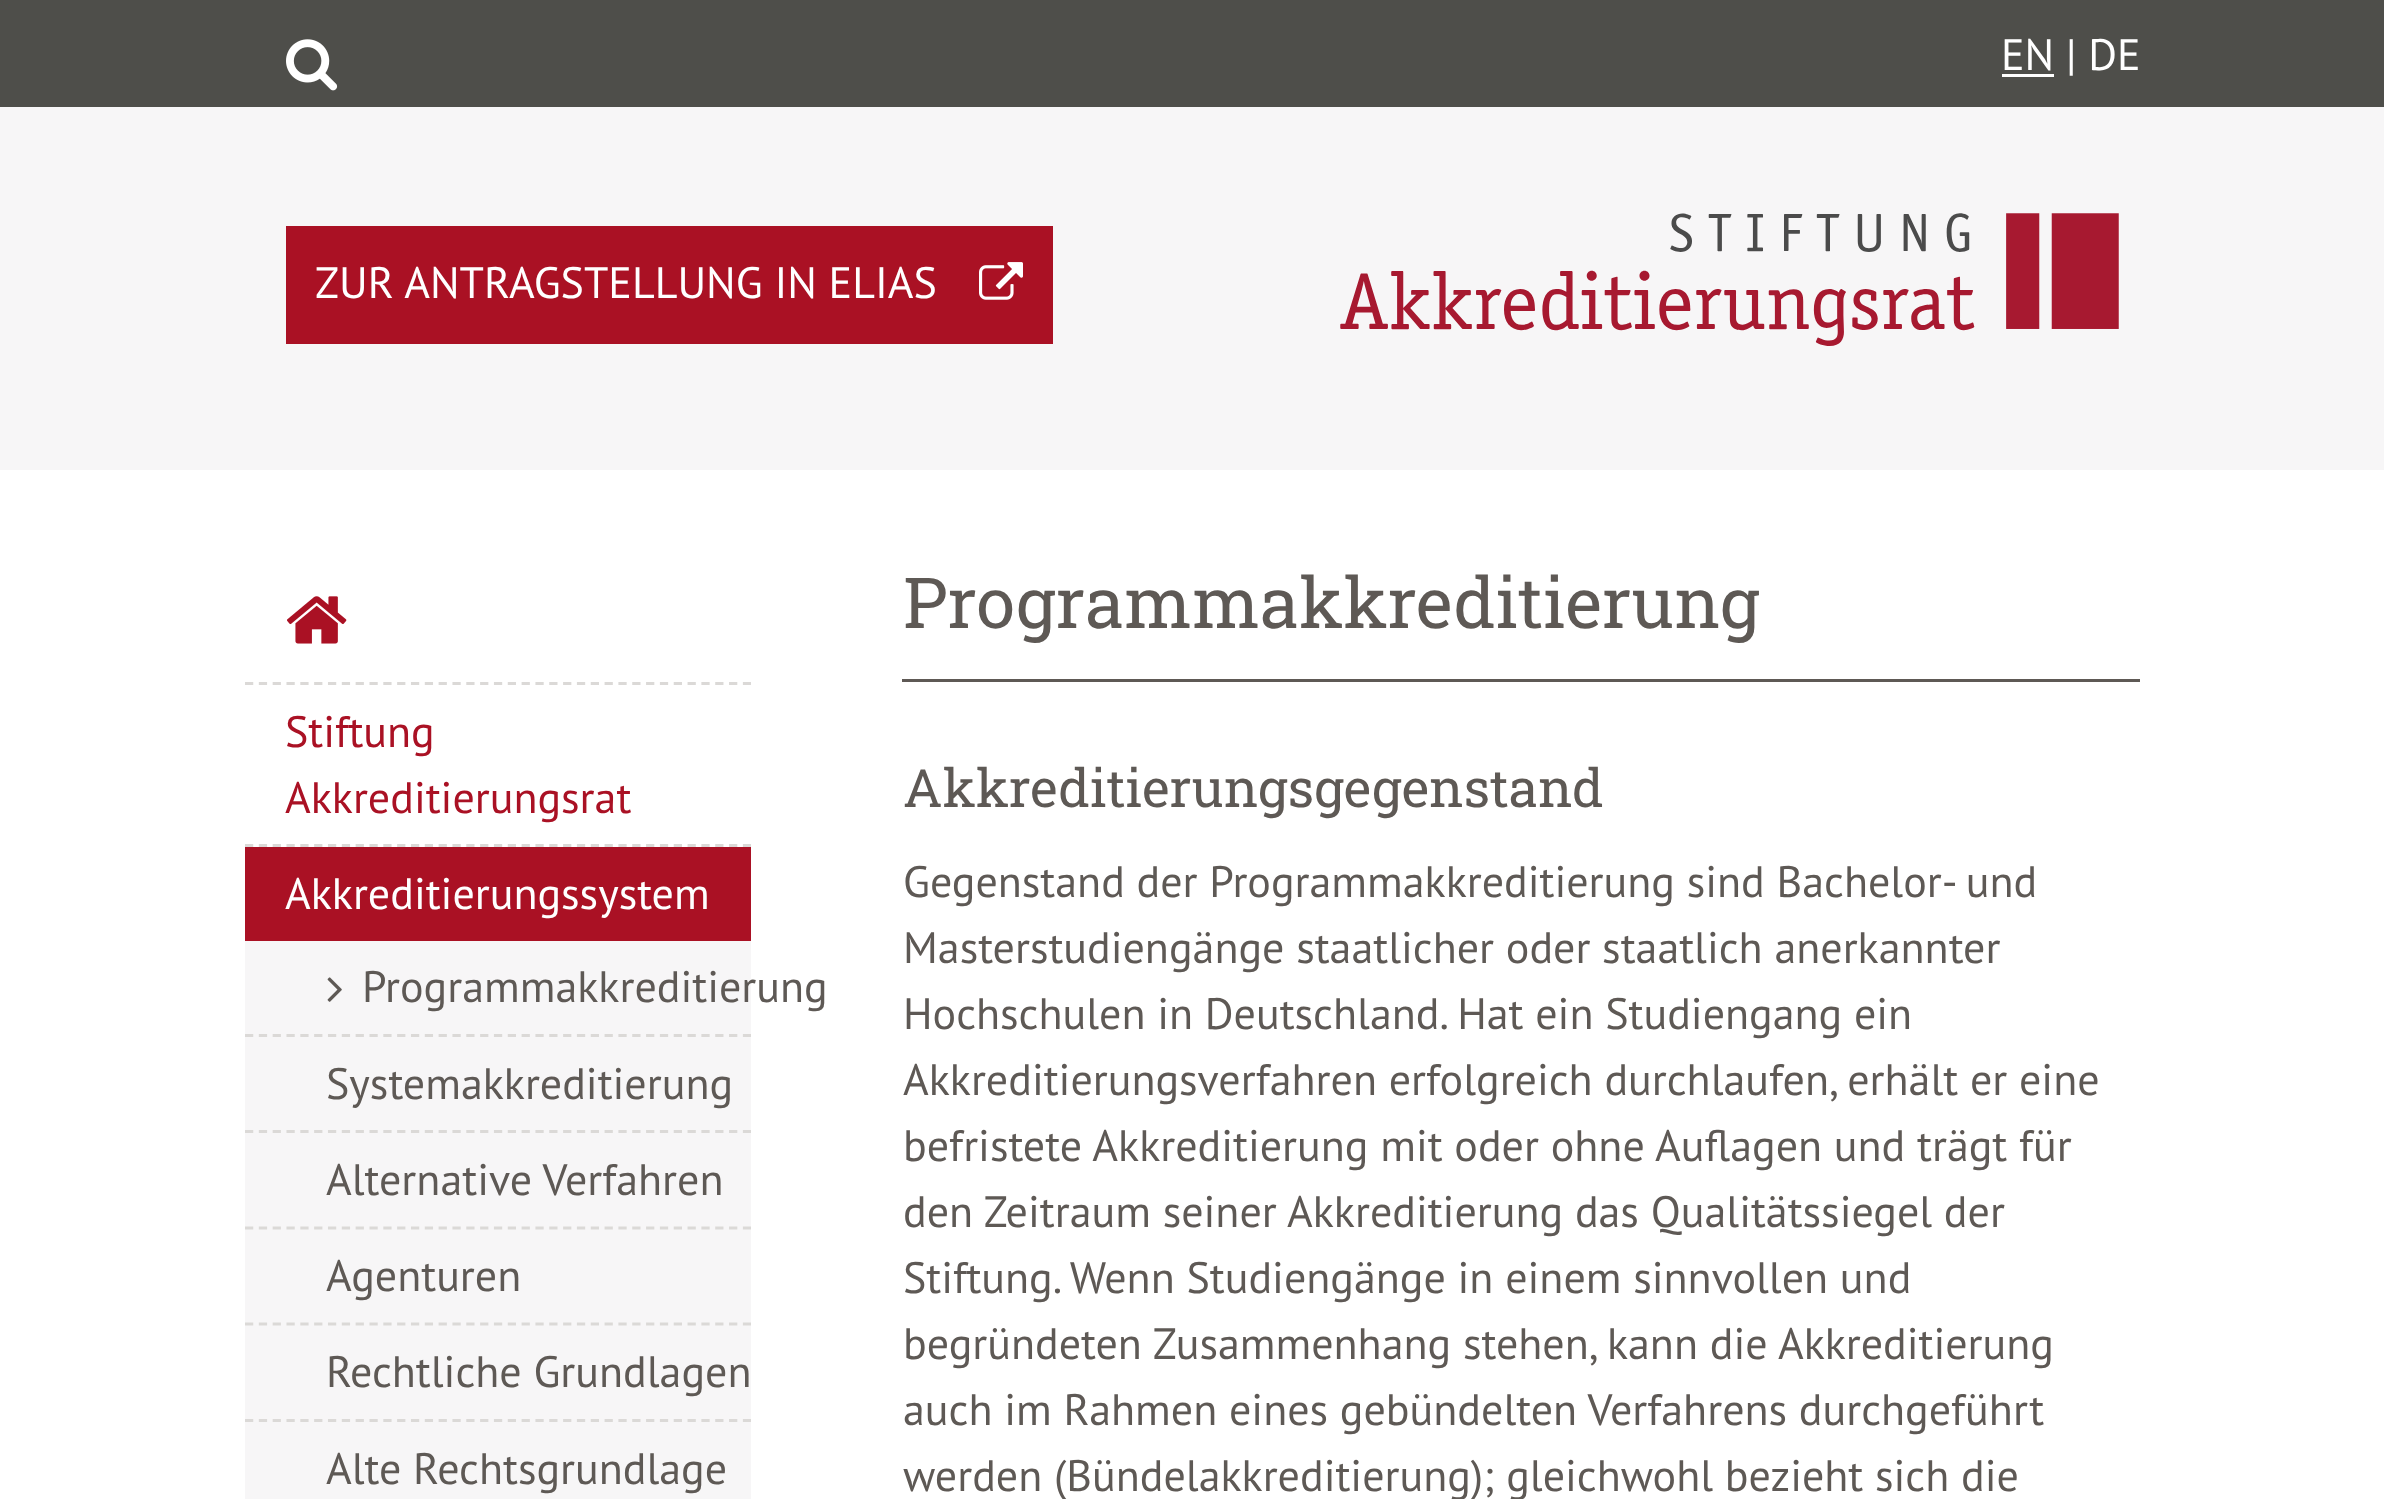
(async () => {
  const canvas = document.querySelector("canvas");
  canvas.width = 2384;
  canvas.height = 1499;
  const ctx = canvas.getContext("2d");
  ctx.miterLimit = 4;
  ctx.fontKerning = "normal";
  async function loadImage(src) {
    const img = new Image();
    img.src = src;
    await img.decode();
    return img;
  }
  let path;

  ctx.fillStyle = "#ffffff";
  ctx.fillRect(0, 0, 2384, 1499);
  ctx.fillStyle = "#4e4e4a";
  ctx.fillRect(0, 0, 2384, 107);
  ctx.drawImage(await loadImage("img/1.png"), 286, 39, 52, 52);
  for (const [x, y, w, h, color] of [
    [2002, 74, 52, 3, "#ffffff"],
    [0, 107, 2384, 363, "#f7f6f7"],
    [286, 226, 767, 118, "#aa1124"],
  ]) {
    ctx.fillStyle = color;
    ctx.fillRect(x, y, w, h);
  }
  ctx.drawImage(await loadImage("img/2.png"), 979, 262, 44, 38);
  ctx.drawImage(await loadImage("img/3.png"), 1340, 213, 779, 133);
  path = new Path2D("M245 683.5H751");
  ctx.strokeStyle = "#dbd9d7";
  ctx.lineWidth = 2.8;
  ctx.setLineDash([8.25, 5.58]);
  ctx.stroke(path);
  ctx.drawImage(await loadImage("img/4.png"), 287, 596, 60, 48);
  path = new Path2D("M245 845.5H751");
  ctx.stroke(path);
  ctx.fillStyle = "#f7f6f7";
  ctx.fillRect(245, 941, 506, 558);
  ctx.fillStyle = "#aa1124";
  ctx.fillRect(245, 847, 506, 94);
  path = new Path2D("M245 1035.5H751");
  ctx.stroke(path);
  ctx.drawImage(await loadImage("img/5.png"), 327, 977, 15, 25);
  path = new Path2D("M245 1131.5H751");
  ctx.stroke(path);
  path = new Path2D("M245 1228H751");
  ctx.stroke(path);
  path = new Path2D("M245 1324H751");
  ctx.stroke(path);
  path = new Path2D("M245 1420.5H751");
  ctx.stroke(path);
  ctx.fillStyle = "#5e5955";
  ctx.fillRect(902, 679, 1238, 3);
  ctx.font = "44px PT Sans";
  ctx.fillStyle = "#ffffff";
  ctx.fillText("EN | DE", 2001, 70);
  ctx.fillText("ZUR ANTRAGSTELLUNG IN ELIAS", 315, 298);
  ctx.fillStyle = "#aa1124";
  ctx.fillText("Stiftung", 285, 747);
  ctx.fillText("Akkreditierungsrat", 285, 813);
  ctx.fillStyle = "#ffffff";
  ctx.fillText("Akkreditierungssystem", 285, 909);
  ctx.fillStyle = "#5e5955";
  for (const [text, x, y] of [
    ["Programmakkreditierung", 362, 1002],
    ["Systemakkreditierung", 326, 1099],
    ["Alternative Verfahren", 326, 1195],
    ["Agenturen", 326, 1291],
    ["Rechtliche Grundlagen", 326, 1387],
    ["Alte Rechtsgrundlage", 326, 1484],
  ]) {
    ctx.fillText(text, x, y);
  }
  ctx.font = "70.4px Roboto Slab";
  ctx.fillText("Programmakkreditierung", 903, 628);
  ctx.font = "52.75px Roboto Slab";
  ctx.fillText("Akkreditierungsgegenstand", 903, 807);
  ctx.font = "44px PT Sans";
  for (const [text, x, y] of [
    ["Gegenstand der Programmakkreditierung sind Bachelor- und", 903, 897],
    ["Masterstudiengänge staatlicher oder staatlich anerkannter", 903, 963],
    ["Hochschulen in Deutschland. Hat ein Studiengang ein", 903, 1029],
    ["Akkreditierungsverfahren erfolgreich durchlaufen, erhält er eine", 903, 1095],
    ["befristete Akkreditierung mit oder ohne Auflagen und trägt für", 903, 1161],
    ["den Zeitraum seiner Akkreditierung das Qualitätssiegel der", 903, 1227],
    ["Stiftung. Wenn Studiengänge in einem sinnvollen und", 903, 1293],
    ["begründeten Zusammenhang stehen, kann die Akkreditierung", 903, 1359],
    ["auch im Rahmen eines gebündelten Verfahrens durchgeführt", 903, 1425],
    ["werden (Bündelakkreditierung); gleichwohl bezieht sich die", 903, 1491],
  ]) {
    ctx.fillText(text, x, y);
  }
})();
